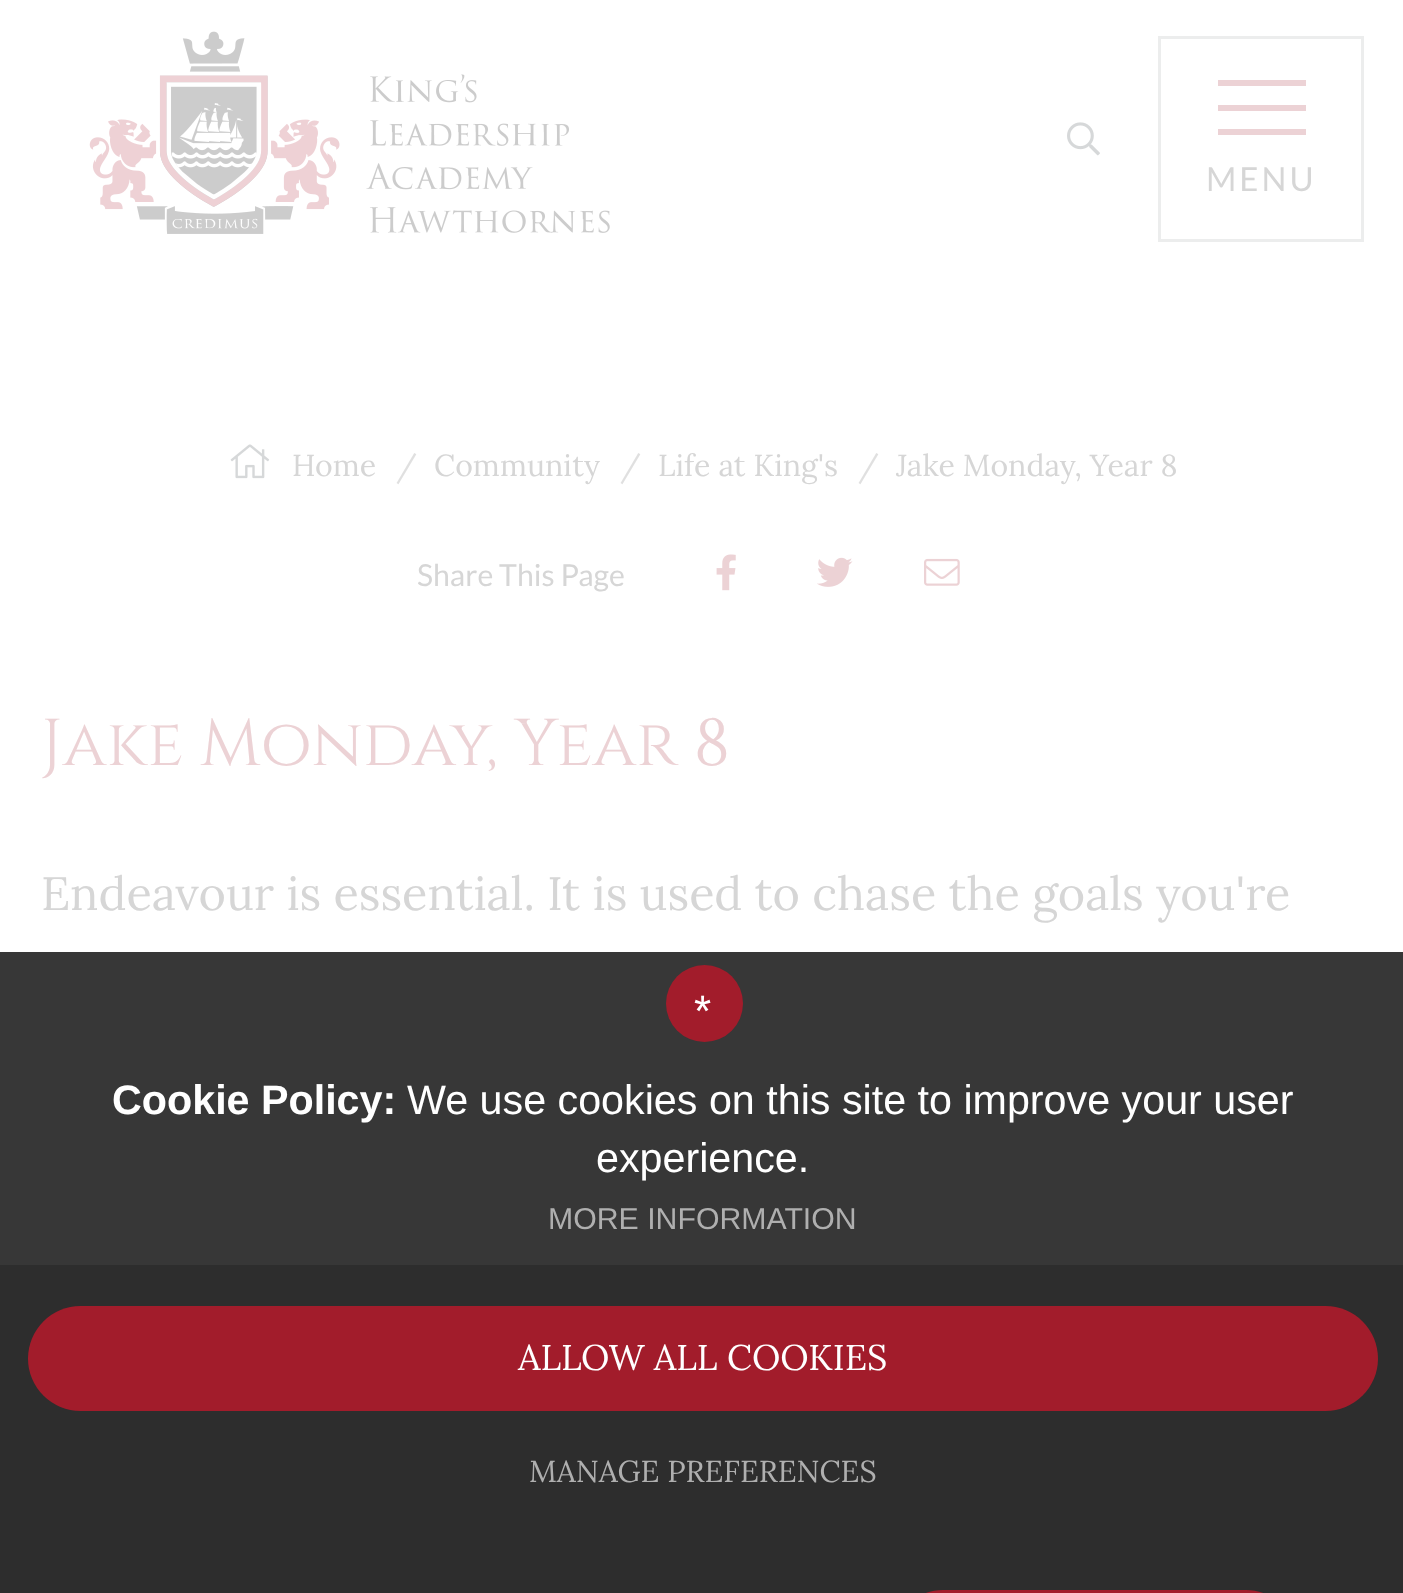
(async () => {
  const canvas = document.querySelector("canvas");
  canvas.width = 1403;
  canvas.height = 1593;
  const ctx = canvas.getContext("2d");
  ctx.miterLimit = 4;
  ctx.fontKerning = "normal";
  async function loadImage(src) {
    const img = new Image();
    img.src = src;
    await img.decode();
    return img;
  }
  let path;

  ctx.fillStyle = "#ffffff";
  ctx.fillRect(0, 0, 1403, 1593);
  ctx.drawImage(await loadImage("img/1.png"), 89, 31, 521, 203);
  ctx.drawImage(await loadImage("img/2.png"), 1067, 122, 33, 34);
  ctx.strokeStyle = "#eceded";
  ctx.lineWidth = 3;
  ctx.strokeRect(1159.5, 37.5, 203, 203);
  for (const [x, y, w, h, color] of [
    [1218, 80, 88, 6, "#ecd2d5"],
    [1218, 105, 88, 6, "#ecd2d5"],
    [1218, 129, 88, 6, "#ecd2d5"],
  ]) {
    ctx.fillStyle = color;
    ctx.fillRect(x, y, w, h);
  }
  ctx.drawImage(await loadImage("img/3.png"), 230, 444, 40, 35);
  ctx.drawImage(await loadImage("img/4.png"), 716, 554, 20, 37);
  ctx.drawImage(await loadImage("img/5.png"), 817, 557, 36, 30);
  ctx.drawImage(await loadImage("img/6.png"), 924, 558, 36, 28);
  ctx.fillStyle = "#2d2d2d";
  ctx.fillRect(0, 1265, 1403, 328);
  ctx.fillStyle = "#373737";
  ctx.fillRect(0, 952, 1403, 313);
  ctx.fillStyle = "#a21c2b";
  ctx.beginPath();
  ctx.arc(704.5, 1003.5, 38.5, 0, Math.PI * 2);
  ctx.fill();
  ctx.beginPath();
  ctx.roundRect(28, 1306, 1350, 105, 52.5);
  ctx.fill();
  path = new Path2D("M943 1590H1246C1274.5 1590 1298 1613.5 1298 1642V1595H891V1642C891 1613.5 914.5 1590 943 1590Z");
  ctx.fill(path);
  ctx.letterSpacing = "3px";
  ctx.font = "33px Lato";
  ctx.fillStyle = "#d6d6d6";
  ctx.fillText("MENU", 1206, 191);
  ctx.letterSpacing = "0px";
  ctx.font = "30.25px Lora";
  ctx.fillText("Home", 292, 476);
  ctx.fillStyle = "#e0e0e0";
  ctx.fillText("/", 396, 476);
  ctx.fillStyle = "#d6d6d6";
  ctx.fillText("Community", 434, 476);
  ctx.fillStyle = "#e0e0e0";
  ctx.fillText("/", 620, 476);
  ctx.fillStyle = "#d6d6d6";
  ctx.fillText("Life at King's", 658, 476);
  ctx.fillStyle = "#e0e0e0";
  ctx.fillText("/", 858, 476);
  ctx.fillStyle = "#d6d6d6";
  ctx.fillText("Jake Monday, Year 8", 896, 476);
  ctx.font = "30.25px Lato";
  ctx.fillText("Share This Page", 417, 586);
  ctx.font = "66px Cinzel";
  ctx.fillStyle = "#ecd2d5";
  ctx.fillText("Jake Monday, Year 8", 41, 765);
  ctx.font = "46.75px Lora";
  ctx.fillStyle = "#d6d6d6";
  ctx.fillText("Endeavour is essential. It is used to chase the goals you're", 41, 910);
  ctx.font = "44px Liberation Sans";
  ctx.fillStyle = "#ffffff";
  ctx.fillText("*", 694, 1026);
  ctx.font = "bold 41.25px Liberation Sans";
  ctx.fillText("Cookie Policy:", 112, 1114);
  ctx.font = "41.25px Liberation Sans";
  ctx.fillText("We use cookies on this site to improve your user", 407, 1114);
  ctx.fillText("experience.", 596, 1172);
  ctx.font = "30.25px Liberation Sans";
  ctx.fillStyle = "#afafaf";
  ctx.fillText("MORE INFORMATION", 548, 1229);
  ctx.font = "35.75px Lora";
  ctx.fillStyle = "#ffffff";
  ctx.fillText("ALLOW ALL COOKIES", 518, 1370);
  ctx.font = "30.25px Lora";
  ctx.fillStyle = "#afafaf";
  ctx.fillText("MANAGE PREFERENCES", 529, 1482);
})();
